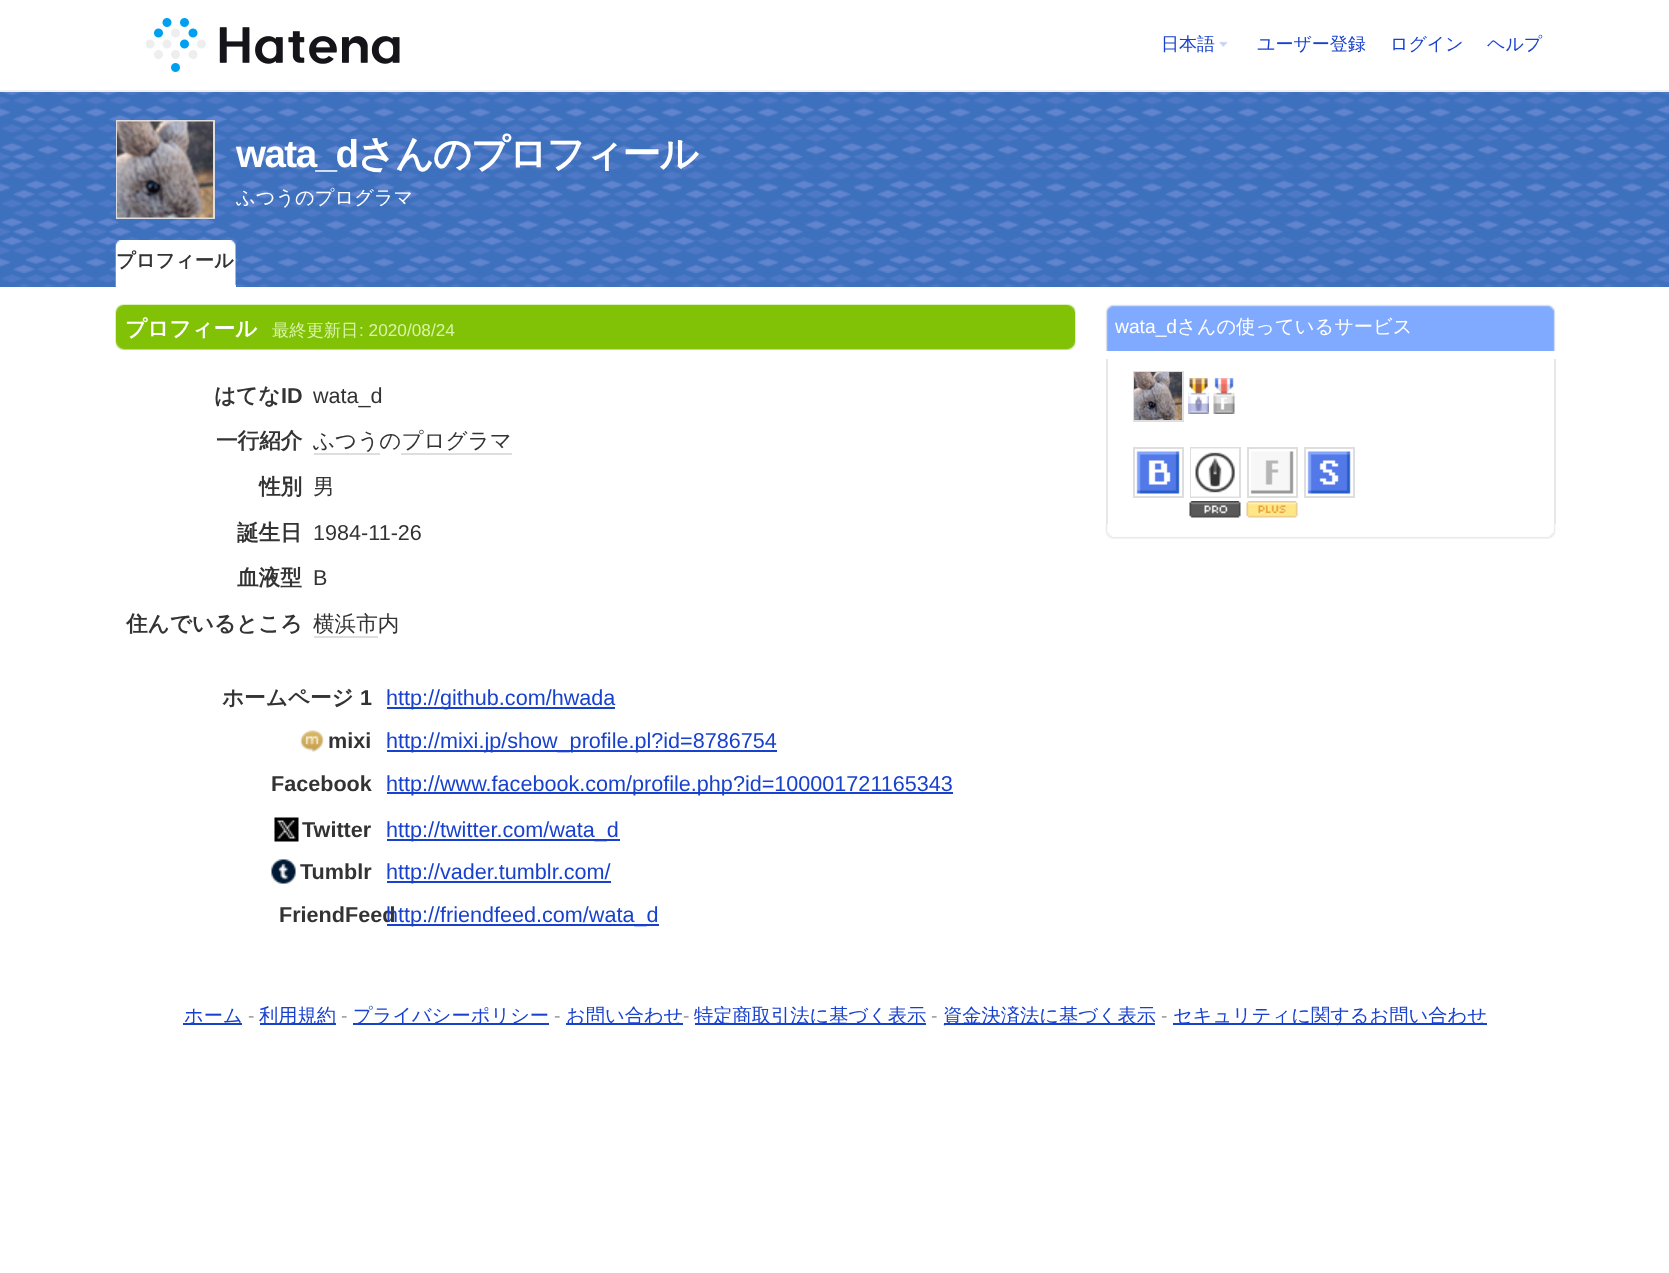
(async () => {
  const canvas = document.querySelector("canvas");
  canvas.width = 1669;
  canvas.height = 1273;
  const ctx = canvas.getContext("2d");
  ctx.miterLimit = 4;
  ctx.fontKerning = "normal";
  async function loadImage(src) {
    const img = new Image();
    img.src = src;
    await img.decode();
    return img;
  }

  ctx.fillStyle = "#ffffff";
  ctx.fillRect(0, 0, 1669, 1273);
  ctx.fillStyle = "#f0f0f0";
  ctx.fillRect(0, 90, 1669, 2);
  ctx.drawImage(await loadImage("img/1.png"), 146, 18, 254, 54);
  ctx.drawImage(await loadImage("img/2.png"), 1219, 41, 9, 6);
  ctx.fillStyle = "#3d70bd";
  ctx.fillRect(0, 286, 1669, 1);
  ctx.drawImage(await loadImage("img/3.png"), 0, 92, 1669, 195);
  ctx.strokeStyle = "#dedede";
  ctx.lineWidth = 2;
  ctx.strokeRect(117, 121, 97, 97);
  ctx.drawImage(await loadImage("img/4.png"), 117, 121, 96, 97);
  ctx.drawImage(await loadImage("img/5.png"), 115, 240, 121, 47);
  ctx.fillStyle = "#ffffff";
  ctx.fillRect(116, 285, 120, 2);
  ctx.drawImage(await loadImage("img/6.png"), 115, 304, 961, 46);
  for (const [x, y, w, h, color] of [
    [314, 453, 66, 2, "#dedede"],
    [401, 453, 111, 2, "#dedede"],
    [314, 636, 64, 2, "#dedede"],
    [387, 707, 228, 2, "#1841ce"],
  ]) {
    ctx.fillStyle = color;
    ctx.fillRect(x, y, w, h);
  }
  ctx.drawImage(await loadImage("img/7.png"), 300, 730, 24, 22);
  ctx.fillRect(387, 750, 390, 2);
  ctx.fillRect(387, 792, 566, 2);
  ctx.drawImage(await loadImage("img/8.png"), 274, 817, 25, 25);
  ctx.fillRect(387, 839, 233, 2);
  ctx.drawImage(await loadImage("img/9.png"), 271, 859, 25, 25);
  ctx.fillRect(387, 881, 224, 2);
  ctx.fillRect(387, 924, 272, 2);
  ctx.drawImage(await loadImage("img/10.png"), 1105, 523, 451, 16);
  ctx.drawImage(await loadImage("img/11.png"), 1105, 304, 451, 47);
  ctx.fillStyle = "#e7e7e7";
  ctx.fillRect(1554, 359, 2, 165);
  ctx.fillRect(1106, 359, 2, 165);
  ctx.strokeRect(1134, 372, 49, 49);
  ctx.drawImage(await loadImage("img/12.png"), 1134, 372, 48, 48);
  ctx.drawImage(await loadImage("img/13.png"), 1188, 378, 21, 36);
  ctx.drawImage(await loadImage("img/14.png"), 1213, 378, 22, 36);
  ctx.strokeRect(1134, 448, 49, 49);
  ctx.drawImage(await loadImage("img/15.png"), 1136, 451, 44, 43);
  ctx.strokeRect(1191, 448, 49, 49);
  ctx.drawImage(await loadImage("img/16.png"), 1191, 448, 48, 49);
  ctx.drawImage(await loadImage("img/17.png"), 1189, 501, 52, 17);
  ctx.strokeRect(1248, 448, 49, 49);
  ctx.drawImage(await loadImage("img/18.png"), 1250, 451, 44, 43);
  ctx.drawImage(await loadImage("img/19.png"), 1246, 501, 52, 17);
  ctx.strokeRect(1305, 448, 49, 49);
  ctx.drawImage(await loadImage("img/20.png"), 1307, 451, 44, 43);
  for (const [x, y, w, h, color] of [
    [183, 1023, 59, 2, "#1841ce"],
    [260, 1023, 76, 2, "#1841ce"],
    [353, 1023, 196, 2, "#1841ce"],
    [566, 1023, 117, 2, "#1841ce"],
    [695, 1023, 231, 2, "#1841ce"],
    [944, 1023, 211, 2, "#1841ce"],
    [1173, 1023, 314, 2, "#1841ce"],
  ]) {
    ctx.fillStyle = color;
    ctx.fillRect(x, y, w, h);
  }
  ctx.font = "500 18px WenQuanYi Zen Hei";
  for (const [text, x, y] of [
    ["日本語", 1161, 50],
    ["ユーザー登録", 1257, 50],
    ["ログイン", 1390, 50],
    ["ヘルプ", 1487, 50],
  ]) {
    ctx.fillText(text, x, y);
  }
  ctx.letterSpacing = "-1.5px";
  ctx.font = "bold 38.5px Liberation Sans";
  ctx.fillStyle = "#ffffff";
  ctx.fillText("wata_d", 236, 167);
  ctx.font = "bold 38.5px WenQuanYi Zen Hei";
  ctx.fillText("さんのプロフィール", 357, 167);
  ctx.letterSpacing = "0px";
  ctx.font = "500 19.25px WenQuanYi Zen Hei";
  ctx.fillText("ふつうのプログラマ", 236, 204);
  ctx.font = "bold 19.25px WenQuanYi Zen Hei";
  ctx.fillStyle = "#333333";
  ctx.fillText("プロフィール", 116, 267);
  ctx.font = "bold 21.6px WenQuanYi Zen Hei";
  ctx.fillStyle = "#ffffff";
  ctx.fillText("プロフィール", 125, 336);
  ctx.font = "500 17.25px WenQuanYi Zen Hei";
  ctx.fillStyle = "#d9f4a6";
  ctx.fillText("最終更新日", 272, 336);
  ctx.font = "17.25px Liberation Sans";
  ctx.fillText(": 2020/08/24", 359, 336);
  ctx.font = "bold 21.6px WenQuanYi Zen Hei";
  ctx.fillStyle = "#333333";
  ctx.fillText("はてな", 214, 403);
  ctx.font = "bold 21.6px Liberation Sans";
  ctx.fillText("ID", 281, 403);
  ctx.font = "21.6px Liberation Sans";
  ctx.fillText("wata_d", 313, 403);
  ctx.font = "bold 21.6px WenQuanYi Zen Hei";
  ctx.fillText("一行紹介", 216, 448);
  ctx.font = "500 21.6px WenQuanYi Zen Hei";
  ctx.fillText("ふつうのプログラマ", 313, 448);
  ctx.font = "bold 21.6px WenQuanYi Zen Hei";
  ctx.fillText("性別", 259, 494);
  ctx.font = "500 21.6px WenQuanYi Zen Hei";
  ctx.fillText("男", 313, 494);
  ctx.font = "bold 21.6px WenQuanYi Zen Hei";
  ctx.fillText("誕生日", 237, 540);
  ctx.font = "21.6px Liberation Sans";
  ctx.fillText("1984-11-26", 313, 540);
  ctx.font = "bold 21.6px WenQuanYi Zen Hei";
  ctx.fillText("血液型", 237, 585);
  ctx.font = "21.6px Liberation Sans";
  ctx.fillText("B", 313, 585);
  ctx.font = "bold 21.6px WenQuanYi Zen Hei";
  ctx.fillText("住んでいるところ", 126, 631);
  ctx.font = "500 21.6px WenQuanYi Zen Hei";
  ctx.fillText("横浜市内", 313, 631);
  ctx.font = "bold 21.6px WenQuanYi Zen Hei";
  ctx.fillText("ホームページ", 222, 705);
  ctx.font = "bold 21.6px Liberation Sans";
  ctx.fillText("1", 360, 705);
  ctx.font = "21.6px Liberation Sans";
  ctx.fillStyle = "#1841ce";
  ctx.fillText("http://github.com/hwada", 386, 705);
  ctx.font = "bold 21.6px Liberation Sans";
  ctx.fillStyle = "#333333";
  ctx.fillText("mixi", 328, 748);
  ctx.font = "21.6px Liberation Sans";
  ctx.fillStyle = "#1841ce";
  ctx.fillText("http://mixi.jp/show_profile.pl?id=8786754", 386, 748);
  ctx.font = "bold 21.6px Liberation Sans";
  ctx.fillStyle = "#333333";
  ctx.fillText("Facebook", 271, 791);
  ctx.font = "21.6px Liberation Sans";
  ctx.fillStyle = "#1841ce";
  ctx.fillText("http://www.facebook.com/profile.php?id=100001721165343", 386, 791);
  ctx.font = "bold 21.6px Liberation Sans";
  ctx.fillStyle = "#333333";
  ctx.fillText("Twitter", 302, 837);
  ctx.font = "21.6px Liberation Sans";
  ctx.fillStyle = "#1841ce";
  ctx.fillText("http://twitter.com/wata_d", 386, 837);
  ctx.font = "bold 21.6px Liberation Sans";
  ctx.fillStyle = "#333333";
  ctx.fillText("Tumblr", 300, 879);
  ctx.font = "21.6px Liberation Sans";
  ctx.fillStyle = "#1841ce";
  ctx.fillText("http://vader.tumblr.com/", 386, 879);
  ctx.font = "bold 21.6px Liberation Sans";
  ctx.fillStyle = "#333333";
  ctx.fillText("FriendFeed", 279, 922);
  ctx.font = "21.6px Liberation Sans";
  ctx.fillStyle = "#1841ce";
  ctx.fillText("http://friendfeed.com/wata_d", 386, 922);
  ctx.font = "19.25px Liberation Sans";
  ctx.fillStyle = "#ffffff";
  ctx.fillText("wata_d", 1115, 333);
  ctx.font = "500 19.25px WenQuanYi Zen Hei";
  ctx.fillText("さんの使っているサービス", 1177, 333);
  ctx.fillStyle = "#1841ce";
  ctx.fillText("ホーム", 184, 1022);
  ctx.font = "19.25px Liberation Sans";
  ctx.fillStyle = "#999999";
  ctx.fillText("-", 248, 1022);
  ctx.font = "500 19.25px WenQuanYi Zen Hei";
  ctx.fillStyle = "#1841ce";
  ctx.fillText("利用規約", 259, 1022);
  ctx.font = "19.25px Liberation Sans";
  ctx.fillStyle = "#999999";
  ctx.fillText("-", 341, 1022);
  ctx.font = "500 19.25px WenQuanYi Zen Hei";
  ctx.fillStyle = "#1841ce";
  ctx.fillText("プライバシーポリシー", 353, 1022);
  ctx.font = "19.25px Liberation Sans";
  ctx.fillStyle = "#999999";
  ctx.fillText("-", 554, 1022);
  ctx.font = "500 19.25px WenQuanYi Zen Hei";
  ctx.fillStyle = "#1841ce";
  ctx.fillText("お問い合わせ", 566, 1022);
  ctx.font = "19.25px Liberation Sans";
  ctx.fillStyle = "#999999";
  ctx.fillText("-", 683, 1022);
  ctx.font = "500 19.25px WenQuanYi Zen Hei";
  ctx.fillStyle = "#1841ce";
  ctx.fillText("特定商取引法に基づく表示", 694, 1022);
  ctx.font = "19.25px Liberation Sans";
  ctx.fillStyle = "#999999";
  ctx.fillText("-", 931, 1022);
  ctx.font = "500 19.25px WenQuanYi Zen Hei";
  ctx.fillStyle = "#1841ce";
  ctx.fillText("資金決済法に基づく表示", 943, 1022);
  ctx.font = "19.25px Liberation Sans";
  ctx.fillStyle = "#999999";
  ctx.fillText("-", 1161, 1022);
  ctx.font = "500 19.25px WenQuanYi Zen Hei";
  ctx.fillStyle = "#1841ce";
  ctx.fillText("セキュリティに関するお問い合わせ", 1173, 1022);
})();
